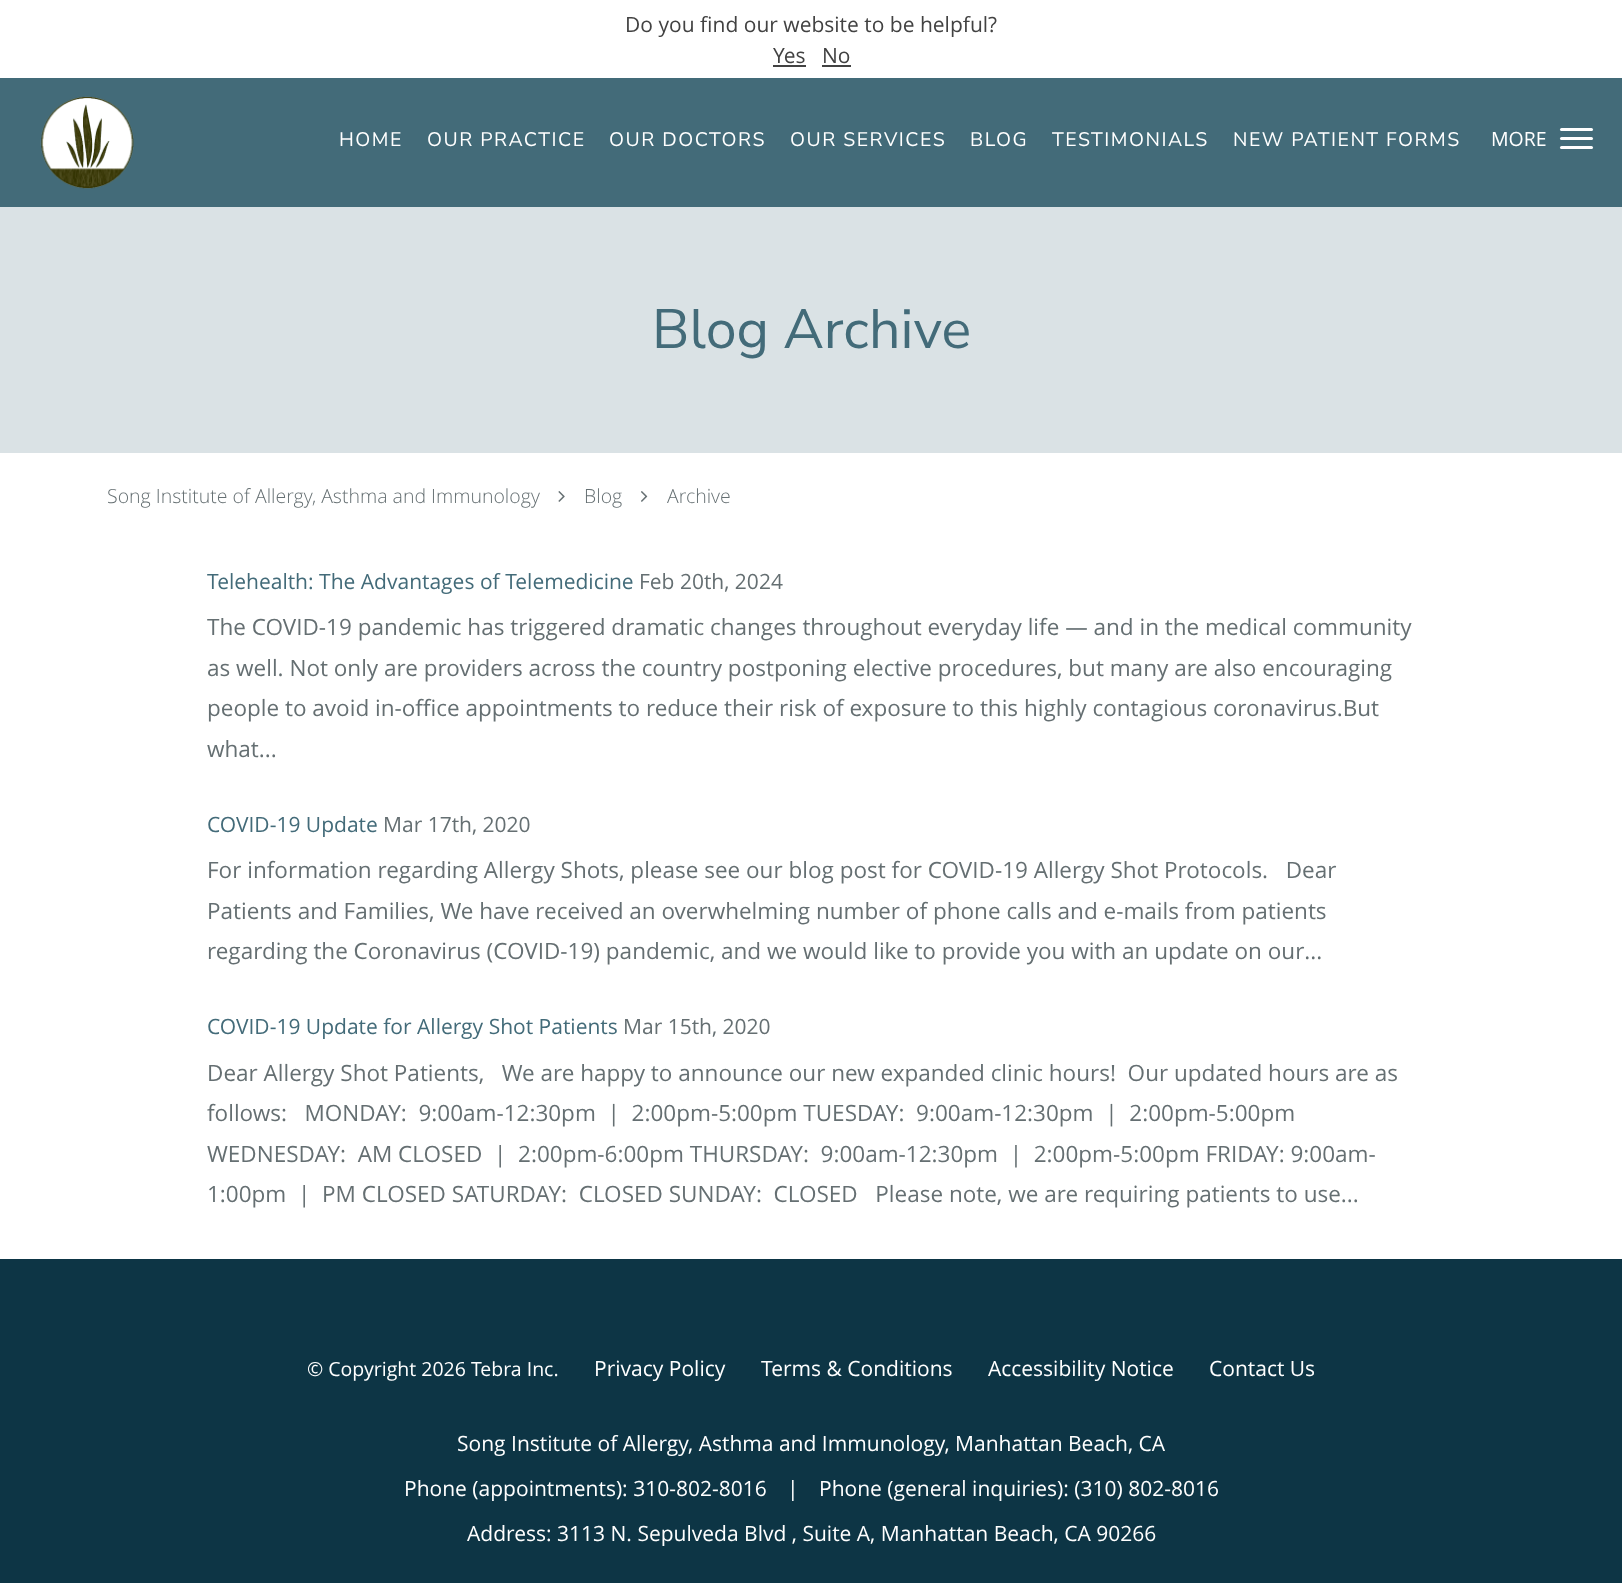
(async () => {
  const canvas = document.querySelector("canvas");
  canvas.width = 1622;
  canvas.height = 1583;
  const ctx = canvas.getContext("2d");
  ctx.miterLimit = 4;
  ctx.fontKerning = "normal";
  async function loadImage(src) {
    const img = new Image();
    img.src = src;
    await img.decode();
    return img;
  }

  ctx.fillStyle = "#ffffff";
  ctx.fillRect(0, 0, 1622, 1583);
  for (const [x, y, w, h, color] of [
    [773, 65, 33, 2, "#424242"],
    [822, 65, 29, 2, "#424242"],
    [0, 78, 1622, 129, "#436b79"],
  ]) {
    ctx.fillStyle = color;
    ctx.fillRect(x, y, w, h);
  }
  ctx.drawImage(await loadImage("img/1.png"), 40, 96, 94, 93);
  ctx.fillStyle = "#ffffff";
  ctx.beginPath();
  ctx.roundRect(1560, 128, 33, 3, 1.5);
  ctx.fill();
  ctx.beginPath();
  ctx.roundRect(1560, 137, 33, 3, 1.5);
  ctx.fill();
  ctx.beginPath();
  ctx.roundRect(1560, 146, 33, 3, 1.5);
  ctx.fill();
  ctx.fillStyle = "#dae2e5";
  ctx.fillRect(0, 207, 1622, 246);
  ctx.drawImage(await loadImage("img/2.png"), 558, 491, 7, 11);
  ctx.drawImage(await loadImage("img/3.png"), 641, 491, 7, 11);
  ctx.fillStyle = "#0d3545";
  ctx.fillRect(0, 1259, 1622, 324);
  ctx.font = "21px Open Sans";
  ctx.fillStyle = "#424242";
  for (const [text, x, y] of [
    ["Do you find our website to be helpful?", 625, 32],
    ["Yes", 773, 63],
    ["No", 822, 63],
  ]) {
    ctx.fillText(text, x, y);
  }
  ctx.letterSpacing = "1.5px";
  ctx.font = "19.5px Nunito Sans";
  ctx.fillStyle = "#ffffff";
  for (const [text, x, y] of [
    ["HOME", 339, 146],
    ["OUR PRACTICE", 427, 146],
    ["OUR DOCTORS", 609, 146],
    ["OUR SERVICES", 790, 146],
    ["BLOG", 970, 146],
    ["TESTIMONIALS", 1052, 146],
    ["NEW PATIENT FORMS", 1233, 146],
  ]) {
    ctx.fillText(text, x, y);
  }
  ctx.letterSpacing = "0px";
  ctx.font = "19.5px Open Sans";
  ctx.fillText("MORE", 1491, 146);
  ctx.font = "55.5px Nunito Sans";
  ctx.fillStyle = "#436b79";
  ctx.fillText("Blog Archive", 652, 348);
  ctx.font = "300 19.5px Open Sans";
  ctx.fillStyle = "#656f72";
  for (const [text, x, y] of [
    ["Song Institute of Allergy, Asthma and Immunology", 107, 503],
    ["Blog", 584, 503],
    ["Archive", 667, 503],
  ]) {
    ctx.fillText(text, x, y);
  }
  ctx.font = "21px Open Sans";
  ctx.fillStyle = "#436b79";
  ctx.fillText("Telehealth: The Advantages of Telemedicine", 207, 589);
  ctx.fillStyle = "#656f72";
  ctx.fillText("Feb 20th, 2024", 639, 589);
  ctx.font = "22.5px Open Sans";
  for (const [text, x, y] of [
    ["The COVID-19 pandemic has triggered dramatic changes throughout everyday life — and in the medical community", 207, 635],
    ["as well. Not only are providers across the country postponing elective procedures, but many are also encouraging", 207, 676],
    ["people to avoid in-office appointments to reduce their risk of exposure to this highly contagious coronavirus.But", 207, 716],
    ["what...", 207, 757],
  ]) {
    ctx.fillText(text, x, y);
  }
  ctx.font = "21px Open Sans";
  ctx.fillStyle = "#436b79";
  ctx.fillText("COVID-19 Update", 207, 832);
  ctx.fillStyle = "#656f72";
  ctx.fillText("Mar 17th, 2020", 383, 832);
  ctx.font = "22.5px Open Sans";
  for (const [text, x, y] of [
    ["For information regarding Allergy Shots, please see our blog post for COVID-19 Allergy Shot Protocols.   Dear", 207, 878],
    ["Patients and Families, We have received an overwhelming number of phone calls and e-mails from patients", 207, 919],
    ["regarding the Coronavirus (COVID-19) pandemic, and we would like to provide you with an update on our...", 207, 959],
  ]) {
    ctx.fillText(text, x, y);
  }
  ctx.font = "21px Open Sans";
  ctx.fillStyle = "#436b79";
  ctx.fillText("COVID-19 Update for Allergy Shot Patients", 207, 1034);
  ctx.fillStyle = "#656f72";
  ctx.fillText("Mar 15th, 2020", 623, 1034);
  ctx.font = "22.5px Open Sans";
  for (const [text, x, y] of [
    ["Dear Allergy Shot Patients,   We are happy to announce our new expanded clinic hours!  Our updated hours are as", 207, 1081],
    ["follows:   MONDAY:  9:00am-12:30pm  |  2:00pm-5:00pm TUESDAY:  9:00am-12:30pm  |  2:00pm-5:00pm", 207, 1121],
    ["WEDNESDAY:  AM CLOSED  |  2:00pm-6:00pm THURSDAY:  9:00am-12:30pm  |  2:00pm-5:00pm FRIDAY: 9:00am-", 207, 1162],
    ["1:00pm  |  PM CLOSED SATURDAY:  CLOSED SUNDAY:  CLOSED   Please note, we are requiring patients to use...", 207, 1202],
  ]) {
    ctx.fillText(text, x, y);
  }
  ctx.font = "19.5px Open Sans";
  ctx.fillStyle = "#ffffff";
  ctx.fillText("© Copyright 2026 Tebra Inc.", 307, 1376);
  ctx.font = "21px Open Sans";
  for (const [text, x, y] of [
    ["Privacy Policy", 594, 1376],
    ["Terms & Conditions", 761, 1376],
    ["Accessibility Notice", 988, 1376],
    ["Contact Us", 1209, 1376],
    ["Song Institute of Allergy, Asthma and Immunology, Manhattan Beach, CA", 457, 1451],
    ["Phone (appointments): 310-802-8016", 404, 1496],
    ["|", 787, 1496],
    ["Phone (general inquiries): (310) 802-8016", 819, 1496],
    ["Address: 3113 N. Sepulveda Blvd , Suite A, Manhattan Beach, CA 90266", 467, 1541],
  ]) {
    ctx.fillText(text, x, y);
  }
})();
